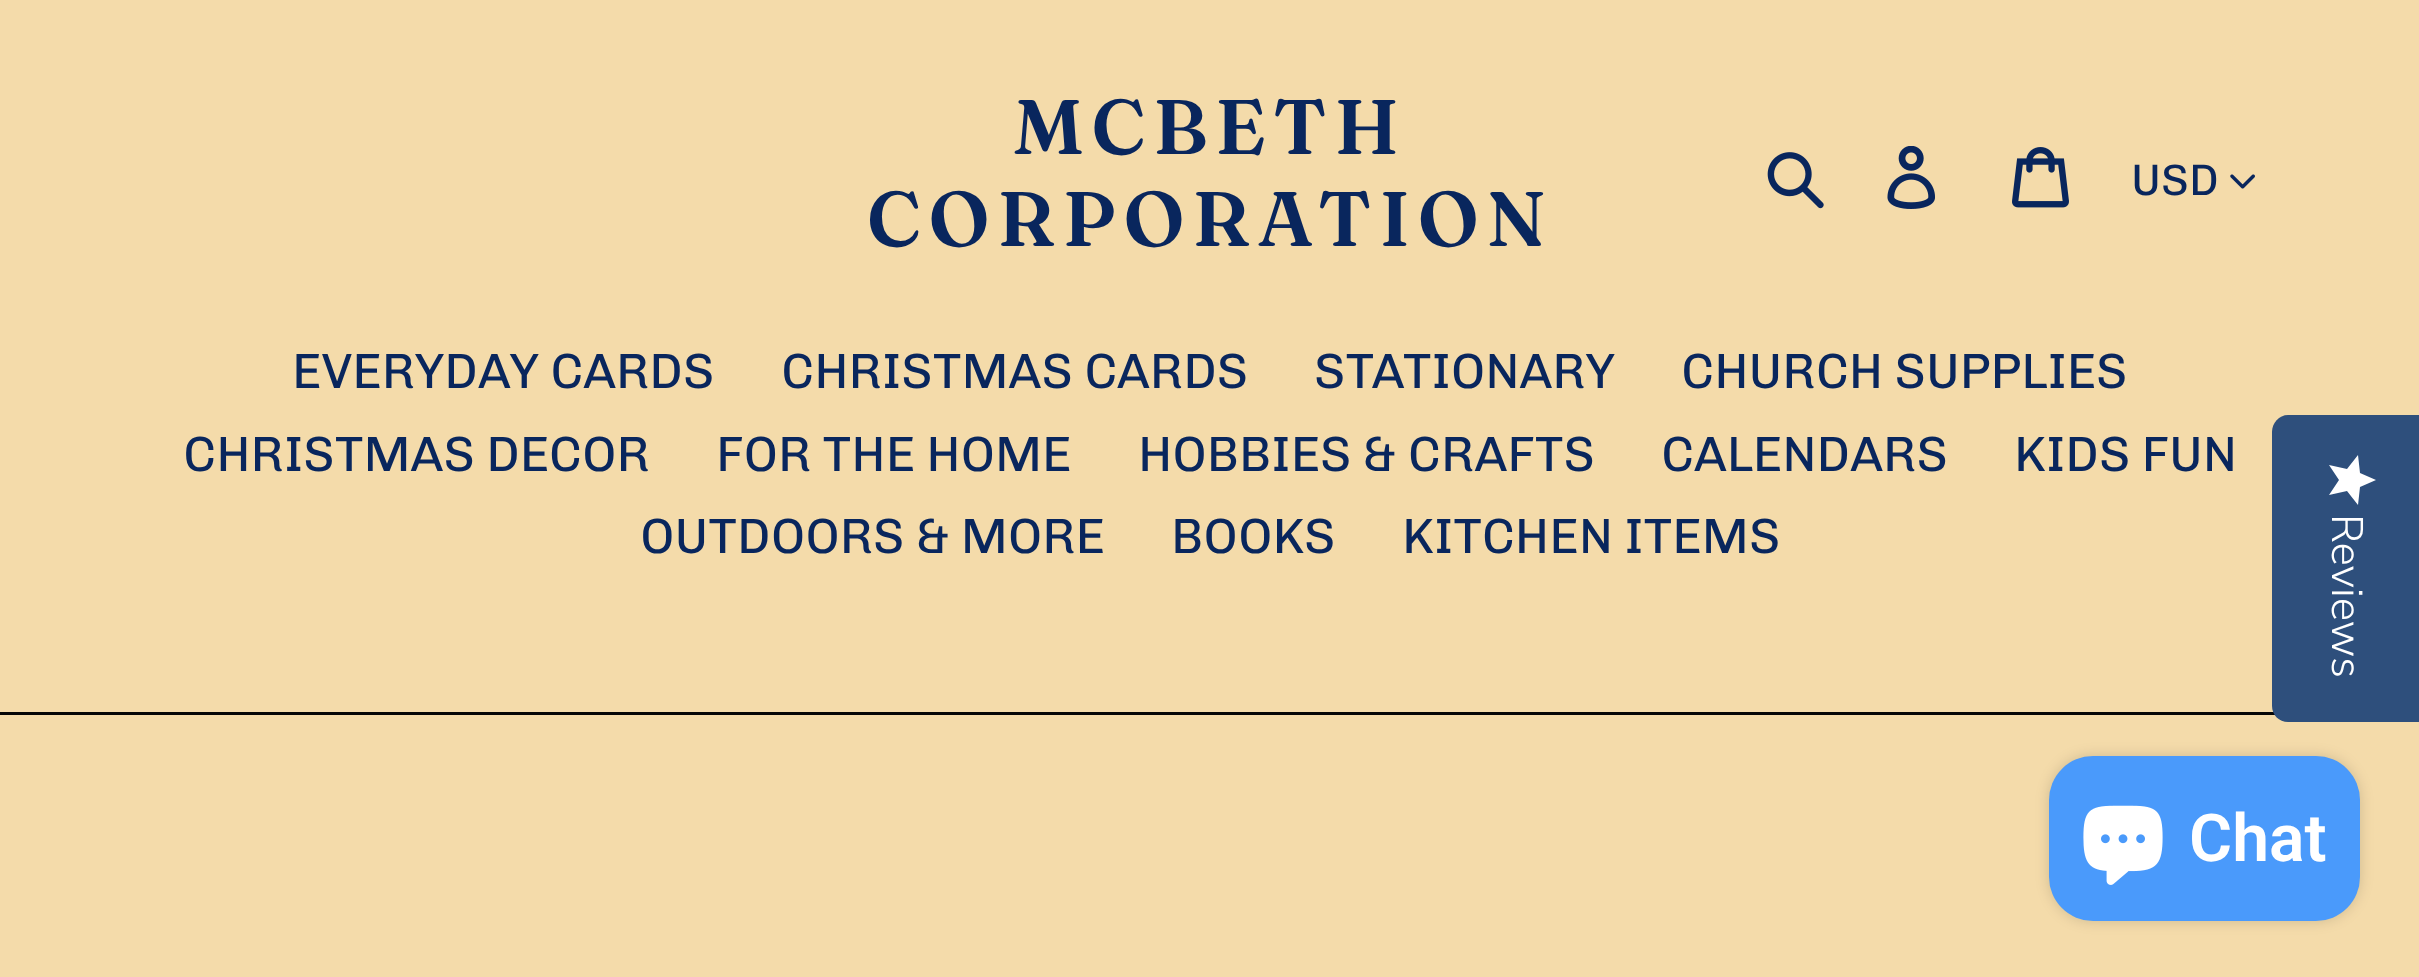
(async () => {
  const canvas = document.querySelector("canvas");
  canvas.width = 2419;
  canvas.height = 977;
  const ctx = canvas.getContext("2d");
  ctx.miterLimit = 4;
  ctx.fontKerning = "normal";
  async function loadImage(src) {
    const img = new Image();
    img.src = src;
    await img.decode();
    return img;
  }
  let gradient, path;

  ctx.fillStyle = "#f4dbaa";
  ctx.fillRect(0, 0, 2419, 977);
  ctx.drawImage(await loadImage("img/1.png"), 1767, 152, 57, 57);
  ctx.drawImage(await loadImage("img/2.png"), 1887, 146, 48, 63);
  ctx.drawImage(await loadImage("img/3.png"), 2012, 147, 57, 61);
  ctx.drawImage(await loadImage("img/4.png"), 2230, 174, 25, 15);
  ctx.fillStyle = "#060606";
  ctx.fillRect(0, 712, 2275, 3);
  ctx.fillStyle = "#2e4f7c";
  path = new Path2D("M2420 415V722H2288C2279 722 2272 715 2272 706V432C2272 423 2279 415 2288 415Z");
  ctx.fill(path);
  gradient = ctx.createLinearGradient(2376, 455, 2376, 505);
  gradient.addColorStop(1, "#ffffff");
  gradient.addColorStop(1, "#eaeaea");
  ctx.fillStyle = gradient;
  path = new Path2D("M2339 480L2329 495L2347 491L2358 505L2360 487L2376 480L2360 473L2358 455L2347 469L2329 465Z");
  ctx.fill(path);
  ctx.fillStyle = "rgba(0, 0, 0, 0.15)";
  ctx.filter = "blur(7px)";
  ctx.beginPath();
  ctx.roundRect(2049, 756, 311, 165, 44);
  ctx.fill();
  ctx.filter = "none";
  ctx.fillStyle = "#4a9afb";
  ctx.beginPath();
  ctx.roundRect(2049, 756, 311, 165, 44);
  ctx.fill();
  ctx.drawImage(await loadImage("img/5.png"), 2083, 805, 80, 80);
  ctx.letterSpacing = "7.75px";
  ctx.font = "600 77px Fraunces";
  ctx.fillStyle = "#09265d";
  ctx.fillText("MCBETH", 1013, 154);
  ctx.fillText("CORPORATION", 867, 246);
  ctx.letterSpacing = "0px";
  ctx.font = "44px Chivo";
  ctx.fillText("USD", 2131, 195);
  ctx.font = "49.5px Chivo";
  for (const [text, x, y] of [
    ["EVERYDAY CARDS", 292, 388],
    ["CHRISTMAS CARDS", 781, 388],
    ["STATIONARY", 1314, 388],
    ["CHURCH SUPPLIES", 1681, 388],
    ["CHRISTMAS DECOR", 183, 471],
    ["FOR THE HOME", 716, 471],
    ["HOBBIES & CRAFTS", 1138, 471],
    ["CALENDARS", 1661, 471],
    ["KIDS FUN", 2014, 471],
    ["OUTDOORS & MORE", 640, 553],
    ["BOOKS", 1171, 553],
    ["KITCHEN ITEMS", 1402, 553],
  ]) {
    ctx.fillText(text, x, y);
  }
  ctx.font = "300 44px Nunito Sans";
  ctx.fillStyle = "#ffffff";
  ctx.save();
  ctx.translate(2332, 514);
  ctx.rotate(90 * Math.PI / 180);
  ctx.fillText("Reviews", 0, 0);
  ctx.restore();
  ctx.font = "600 66px Roboto";
  ctx.fillText("Chat", 2189, 861);
})();
